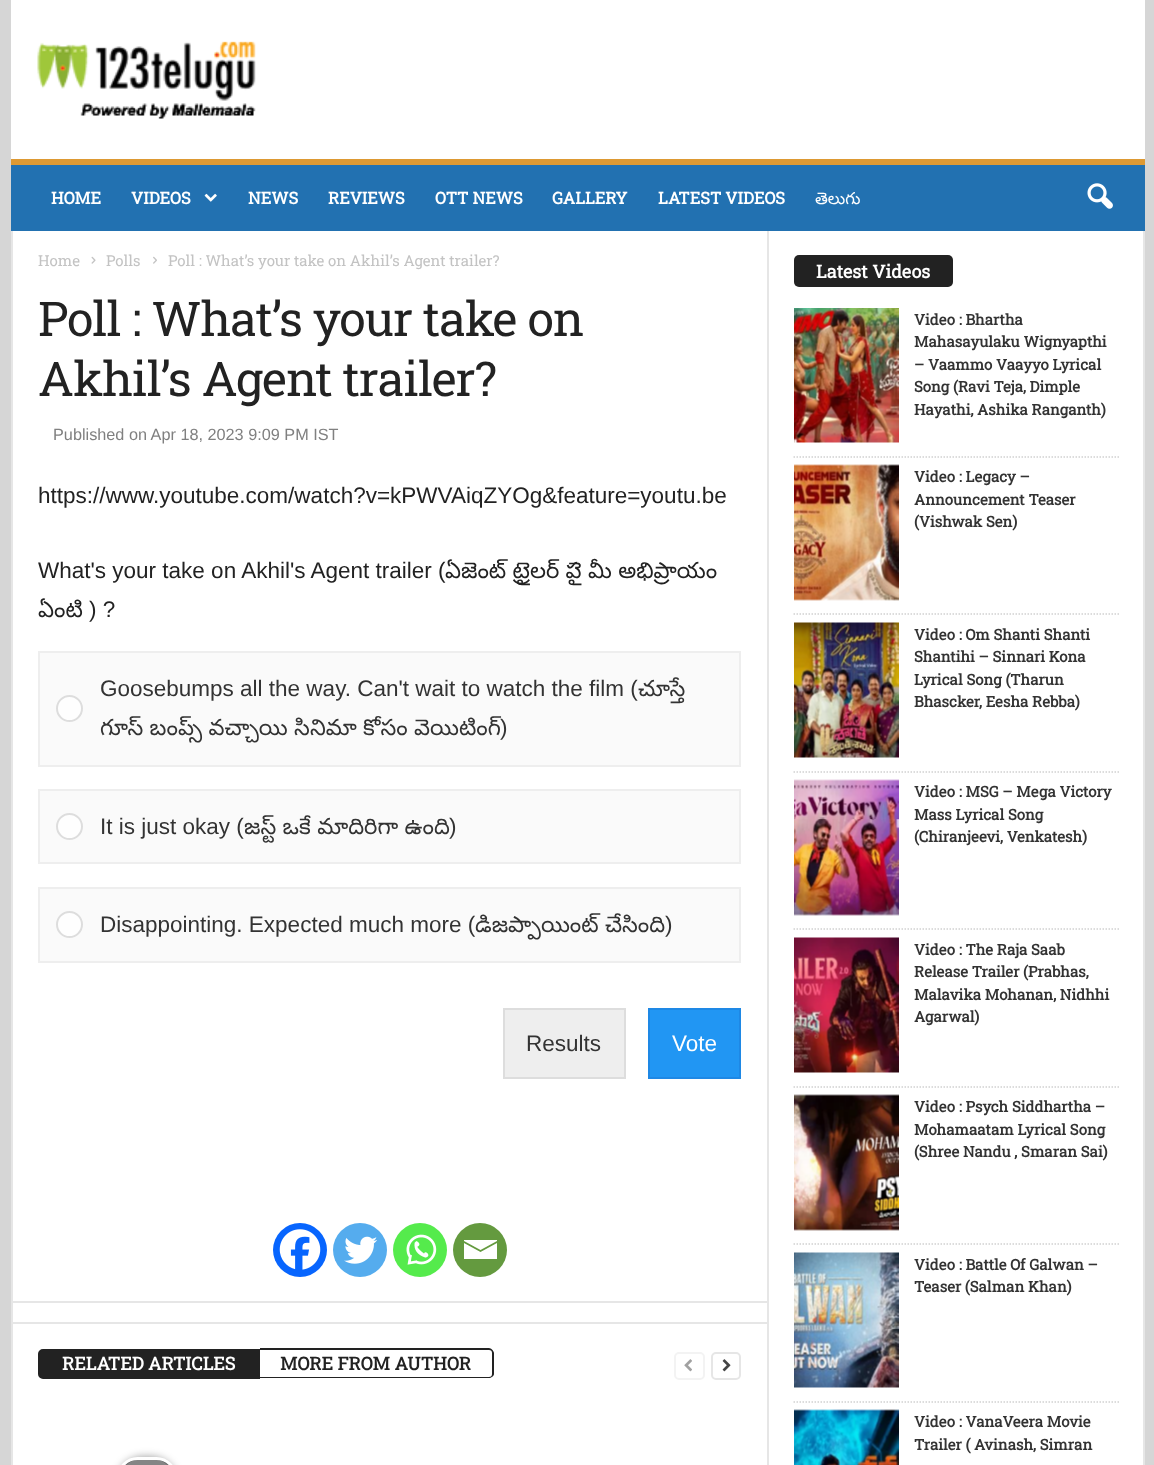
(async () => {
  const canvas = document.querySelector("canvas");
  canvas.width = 1154;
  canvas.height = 1465;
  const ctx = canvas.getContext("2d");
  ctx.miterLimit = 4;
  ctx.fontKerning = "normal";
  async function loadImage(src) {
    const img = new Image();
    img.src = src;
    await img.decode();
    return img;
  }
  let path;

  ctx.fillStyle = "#d6d6d6";
  ctx.fillRect(0, 0, 1154, 1465);
  ctx.fillStyle = "#ffffff";
  ctx.fillRect(11, 0, 1134, 159);
  ctx.drawImage(await loadImage("img/1.png"), 37, 41, 219, 78);
  ctx.fillStyle = "#2271b1";
  ctx.fillRect(11, 165, 1134, 66);
  ctx.fillStyle = "#dd9933";
  ctx.fillRect(11, 159, 1134, 6);
  ctx.drawImage(await loadImage("img/2.png"), 204, 193, 13, 9);
  ctx.drawImage(await loadImage("img/3.png"), 1087, 183, 26, 26);
  ctx.fillStyle = "#ffffff";
  ctx.fillRect(13, 231, 1130, 1234);
  ctx.fillStyle = "#e6e6e6";
  ctx.fillRect(11, 231, 2, 1234);
  ctx.drawImage(await loadImage("img/4.png"), 91, 256, 5, 8);
  ctx.drawImage(await loadImage("img/5.png"), 153, 256, 4, 8);
  ctx.fillStyle = "#fafafa";
  ctx.beginPath();
  ctx.rect(39, 652, 701, 114);
  ctx.fill();
  ctx.strokeStyle = "#eeeeee";
  ctx.lineWidth = 2;
  ctx.stroke();
  ctx.fillStyle = "#fefefe";
  ctx.beginPath();
  ctx.arc(69.5, 708.5, 12.5, 0, Math.PI * 2);
  ctx.fill();
  ctx.strokeStyle = "#dddddd";
  ctx.stroke();
  ctx.fillStyle = "#fafafa";
  ctx.beginPath();
  ctx.rect(39, 790, 701, 73);
  ctx.fill();
  ctx.strokeStyle = "#eeeeee";
  ctx.stroke();
  ctx.fillStyle = "#fefefe";
  ctx.beginPath();
  ctx.arc(69.5, 826.5, 12.5, 0, Math.PI * 2);
  ctx.fill();
  ctx.strokeStyle = "#dddddd";
  ctx.stroke();
  ctx.fillStyle = "#fafafa";
  ctx.beginPath();
  ctx.rect(39, 888, 701, 74);
  ctx.fill();
  ctx.strokeStyle = "#eeeeee";
  ctx.stroke();
  ctx.fillStyle = "#fefefe";
  ctx.beginPath();
  ctx.arc(69.5, 924.5, 12.5, 0, Math.PI * 2);
  ctx.fill();
  ctx.strokeStyle = "#dddddd";
  ctx.stroke();
  ctx.fillStyle = "#eeeeee";
  ctx.beginPath();
  ctx.rect(504, 1009, 121, 69);
  ctx.fill();
  ctx.stroke();
  ctx.fillStyle = "#2196f3";
  ctx.beginPath();
  ctx.rect(649, 1009, 91, 69);
  ctx.fill();
  ctx.strokeStyle = "#1e88e5";
  ctx.stroke();
  ctx.fillStyle = "#0765fe";
  ctx.beginPath();
  ctx.arc(300, 1250, 27, 0, Math.PI * 2);
  ctx.fill();
  ctx.drawImage(await loadImage("img/6.png"), 279, 1229, 42, 41);
  ctx.fillStyle = "#55acee";
  ctx.beginPath();
  ctx.arc(360, 1250, 27, 0, Math.PI * 2);
  ctx.fill();
  ctx.drawImage(await loadImage("img/7.png"), 344, 1236, 34, 28);
  ctx.fillStyle = "#55eb4c";
  ctx.beginPath();
  ctx.arc(420, 1250, 27, 0, Math.PI * 2);
  ctx.fill();
  ctx.drawImage(await loadImage("img/8.png"), 406, 1234, 31, 31);
  ctx.fillStyle = "#649a3f";
  ctx.beginPath();
  ctx.arc(480, 1250, 27, 0, Math.PI * 2);
  ctx.fill();
  ctx.fillStyle = "#ffffff";
  path = new Path2D("M462.5 1240H497V1241L480.5 1250L464 1241V1240M464 1243L480.5 1252L497 1243V1259H464V1243");
  ctx.fill(path);
  ctx.fillStyle = "#e6e6e6";
  ctx.fillRect(12, 1301, 755, 2);
  ctx.fillRect(12, 1322, 755, 2);
  ctx.fillStyle = "#222222";
  ctx.beginPath();
  ctx.roundRect(39, 1350, 220, 28, [4, 0, 0, 4]);
  ctx.fill();
  ctx.strokeStyle = "#222222";
  ctx.stroke();
  path = new Path2D("M260 1348H489C491 1348 494 1351 494 1353V1374C494 1376 491 1378 489 1378H260ZM260 1350H489C491 1350 492 1351 492 1353V1374C492 1376 491 1377 489 1377H260Z");
  ctx.fill(path, "evenodd");
  ctx.beginPath();
  ctx.roundRect(675, 1353, 29, 26, 4);
  ctx.strokeStyle = "#f3f3f3";
  ctx.stroke();
  ctx.drawImage(await loadImage("img/9.png"), 684, 1359, 8, 13);
  ctx.beginPath();
  ctx.roundRect(712, 1353, 28, 26, 4);
  ctx.strokeStyle = "#e6e6e6";
  ctx.stroke();
  ctx.drawImage(await loadImage("img/10.png"), 722, 1359, 9, 13);
  ctx.save();
  path = new Path2D("M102 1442H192V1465H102ZM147 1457C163.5 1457 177 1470.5 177 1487C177 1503.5 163.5 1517 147 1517C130.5 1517 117 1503.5 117 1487C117 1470.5 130.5 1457 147 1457Z");
  ctx.clip(path, "evenodd");
  ctx.fillStyle = "rgba(0, 0, 0, 0.4)";
  ctx.filter = "blur(4.5px)";
  ctx.beginPath();
  ctx.roundRect(117, 1457, 60, 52, 30);
  ctx.fill();
  ctx.filter = "none";
  ctx.restore();
  ctx.fillStyle = "rgba(0, 0, 0, 0.48)";
  ctx.beginPath();
  ctx.roundRect(118.5, 1458.5, 57, 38, 28.5);
  ctx.fill();
  ctx.strokeStyle = "#ffffff";
  ctx.lineWidth = 3;
  ctx.stroke();
  ctx.fillStyle = "#e6e6e6";
  ctx.fillRect(767, 231, 2, 1234);
  ctx.fillStyle = "#222222";
  ctx.beginPath();
  ctx.roundRect(794, 255, 159, 32, 5);
  ctx.fill();
  path = new Path2D("M793.5 457H1119");
  ctx.strokeStyle = "#d1d1d1";
  ctx.lineWidth = 1.5;
  ctx.setLineDash([1.5, 1.5]);
  ctx.stroke(path);
  ctx.drawImage(await loadImage("img/11.png"), 794, 308, 105, 135);
  path = new Path2D("M793.5 614H1119");
  ctx.stroke(path);
  ctx.drawImage(await loadImage("img/12.png"), 794, 464, 105, 137);
  path = new Path2D("M793.5 772H1119");
  ctx.stroke(path);
  ctx.drawImage(await loadImage("img/13.png"), 794, 622, 105, 136);
  path = new Path2D("M793.5 929H1119");
  ctx.stroke(path);
  ctx.drawImage(await loadImage("img/14.png"), 794, 779, 105, 137);
  path = new Path2D("M793.5 1087H1119");
  ctx.stroke(path);
  ctx.drawImage(await loadImage("img/15.png"), 794, 937, 105, 136);
  path = new Path2D("M793.5 1244H1119");
  ctx.stroke(path);
  ctx.drawImage(await loadImage("img/16.png"), 794, 1094, 105, 137);
  path = new Path2D("M793.5 1402H1119");
  ctx.stroke(path);
  ctx.drawImage(await loadImage("img/17.png"), 794, 1252, 105, 136);
  ctx.drawImage(await loadImage("img/18.png"), 794, 1409, 105, 56);
  ctx.fillStyle = "#e6e6e6";
  ctx.fillRect(1143, 231, 2, 1234);
  ctx.font = "bold 16.5px Roboto Slab";
  ctx.fillStyle = "#ffffff";
  for (const [text, x, y] of [
    ["HOME", 51, 204],
    ["VIDEOS", 131, 204],
    ["NEWS", 248, 204],
    ["REVIEWS", 328, 204],
    ["OTT NEWS", 435, 204],
    ["GALLERY", 552, 204],
    ["LATEST VIDEOS", 658, 204],
  ]) {
    ctx.fillText(text, x, y);
  }
  ctx.font = "16.5px Noto Sans Telugu";
  ctx.fillText("తెలుగు", 815, 204);
  ctx.font = "15px Roboto Slab";
  ctx.fillStyle = "#c3c3c3";
  for (const [text, x, y] of [
    ["Home", 38, 266],
    ["Polls", 106, 266],
    ["Poll : What’s your take on Akhil’s Agent trailer?", 168, 266],
  ]) {
    ctx.fillText(text, x, y);
  }
  ctx.letterSpacing = "-0.95px";
  ctx.font = "48px Roboto Slab";
  ctx.fillStyle = "#222222";
  ctx.fillText("Poll : What’s your take on", 38, 336);
  ctx.fillText("Akhil’s Agent trailer?", 38, 396);
  ctx.letterSpacing = "0px";
  ctx.font = "16.25px Liberation Sans";
  ctx.fillStyle = "#808080";
  ctx.fillText("Published on Apr 18, 2023 9:09 PM IST", 53, 440);
  ctx.font = "22.5px Arimo";
  ctx.fillStyle = "#222222";
  ctx.fillText("https://www.youtube.com/watch?v=kPWVAiqZYOg&feature=youtu.be", 38, 503);
  ctx.fillText("What's your take on Akhil's Agent trailer (", 38, 578);
  ctx.font = "22.5px Noto Sans Telugu";
  ctx.fillText("ఏజెంట్ ట్రైలర్ పై మీ అభిప్రాయం", 445, 578);
  ctx.fillText("ఏంటి", 38, 617);
  ctx.font = "22.5px Arimo";
  ctx.fillText(") ?", 89, 617);
  ctx.fillStyle = "#333333";
  ctx.fillText("Goosebumps all the way. Can't wait to watch the film (", 100, 696);
  ctx.font = "22.5px Noto Sans Telugu";
  ctx.fillText("చూస్తే", 638, 696);
  ctx.fillText("గూస్ బంప్స్ వచ్చాయి సినిమా కోసం వెయిటింగ్", 100, 735);
  ctx.font = "22.5px Arimo";
  ctx.fillText(")", 500, 735);
  ctx.fillText("It is just okay (", 100, 834);
  ctx.font = "22.5px Noto Sans Telugu";
  ctx.fillText("జస్ట్ ఒకే మాదిరిగా ఉంది", 244, 834);
  ctx.font = "22.5px Arimo";
  ctx.fillText(")", 449, 834);
  ctx.fillText("Disappointing. Expected much more (", 100, 932);
  ctx.font = "22.5px Noto Sans Telugu";
  ctx.fillText("డిజప్పాయింట్ చేసింది", 475, 932);
  ctx.font = "22.5px Arimo";
  ctx.fillText(")", 665, 932);
  ctx.fillText("Results", 526, 1051);
  ctx.fillStyle = "#ffffff";
  ctx.fillText("Vote", 672, 1051);
  ctx.font = "bold 18px Roboto Slab";
  ctx.fillText("RELATED ARTICLES", 62, 1370);
  ctx.fillStyle = "#222222";
  ctx.fillText("MORE FROM AUTHOR", 280, 1370);
  ctx.fillStyle = "#ffffff";
  ctx.fillText("Latest Videos", 816, 278);
  ctx.font = "bold 15px Roboto Slab";
  ctx.fillStyle = "#333333";
  for (const [text, x, y] of [
    ["Video : Bhartha", 914, 325],
    ["Mahasayulaku Wignyapthi", 914, 347],
    ["– Vaammo Vaayyo Lyrical", 914, 370],
    ["Song (Ravi Teja, Dimple", 914, 392],
    ["Hayathi, Ashika Ranganth)", 914, 415],
    ["Video : Legacy –", 914, 482],
    ["Announcement Teaser", 914, 505],
    ["(Vishwak Sen)", 914, 527],
    ["Video : Om Shanti Shanti", 914, 640],
    ["Shantihi – Sinnari Kona", 914, 662],
    ["Lyrical Song (Tharun", 914, 685],
    ["Bhascker, Eesha Rebba)", 914, 707],
    ["Video : MSG – Mega Victory", 914, 797],
    ["Mass Lyrical Song", 914, 820],
    ["(Chiranjeevi, Venkatesh)", 914, 842],
    ["Video : The Raja Saab", 914, 955],
    ["Release Trailer (Prabhas,", 914, 977],
    ["Malavika Mohanan, Nidhhi", 914, 1000],
    ["Agarwal)", 914, 1022],
    ["Video : Psych Siddhartha –", 914, 1112],
    ["Mohamaatam Lyrical Song", 914, 1135],
    ["(Shree Nandu , Smaran Sai)", 914, 1157],
    ["Video : Battle Of Galwan –", 914, 1270],
    ["Teaser (Salman Khan)", 914, 1292],
    ["Video : VanaVeera Movie", 914, 1427],
    ["Trailer ( Avinash, Simran", 914, 1450],
  ]) {
    ctx.fillText(text, x, y);
  }
})();
